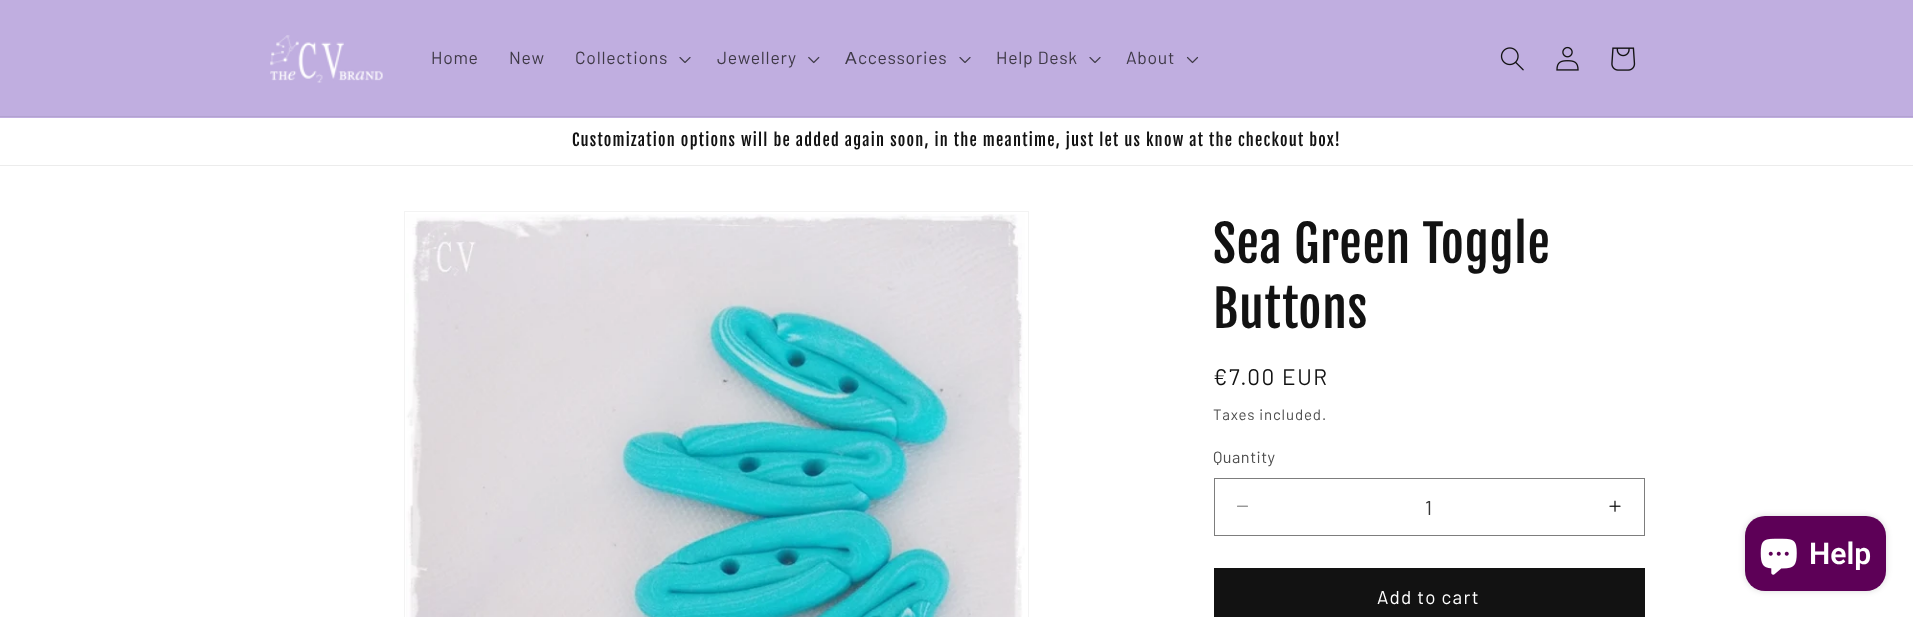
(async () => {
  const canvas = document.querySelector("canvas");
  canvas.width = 1913;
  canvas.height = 617;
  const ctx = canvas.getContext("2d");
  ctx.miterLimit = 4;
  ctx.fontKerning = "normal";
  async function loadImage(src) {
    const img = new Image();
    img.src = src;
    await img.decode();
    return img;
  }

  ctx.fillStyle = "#ffffff";
  ctx.fillRect(0, 0, 1913, 617);
  ctx.fillStyle = "#c0aee0";
  ctx.fillRect(0, 0, 1913, 118);
  ctx.fillStyle = "#b2a2d0";
  ctx.fillRect(0, 116, 1913, 1);
  ctx.drawImage(await loadImage("img/1.png"), 270, 35, 113, 48);
  ctx.drawImage(await loadImage("img/2.png"), 679, 57, 12, 6);
  ctx.drawImage(await loadImage("img/3.png"), 808, 56, 12, 8);
  ctx.drawImage(await loadImage("img/2.png"), 959, 57, 12, 6);
  ctx.drawImage(await loadImage("img/2.png"), 1089, 57, 12, 6);
  ctx.drawImage(await loadImage("img/4.png"), 1186, 56, 13, 8);
  ctx.drawImage(await loadImage("img/5.png"), 1500, 47, 24, 24);
  ctx.drawImage(await loadImage("img/6.png"), 1556, 46, 23, 25);
  ctx.drawImage(await loadImage("img/7.png"), 1611, 47, 25, 24);
  ctx.fillStyle = "#ececec";
  ctx.fillRect(0, 165, 1913, 1);
  ctx.strokeStyle = "#f3f3f3";
  ctx.strokeRect(404.5, 211.5, 624, 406);
  ctx.drawImage(await loadImage("img/8.png"), 406, 214, 619, 403);
  ctx.drawImage(await loadImage("img/9.png"), 1237, 505, 11, 2);
  ctx.drawImage(await loadImage("img/10.png"), 1609, 500, 12, 12);
  ctx.strokeStyle = "#7d7d7d";
  ctx.strokeRect(1214.5, 478.5, 430, 57);
  ctx.fillStyle = "#121212";
  ctx.fillRect(1214, 568, 431, 49);
  ctx.fillStyle = "rgba(0, 0, 0, 0.15)";
  ctx.filter = "blur(3px)";
  ctx.beginPath();
  ctx.roundRect(1745, 516, 141, 75, 20);
  ctx.fill();
  ctx.filter = "none";
  ctx.fillStyle = "#5d0057";
  ctx.beginPath();
  ctx.roundRect(1745, 516, 141, 75, 20);
  ctx.fill();
  ctx.drawImage(await loadImage("img/11.png"), 1760, 538, 37, 37);
  ctx.letterSpacing = "0.75px";
  ctx.font = "17.5px Barlow";
  ctx.fillStyle = "#3e3946";
  for (const [text, x, y] of [
    ["Home", 431, 64],
    ["New", 509, 64],
    ["Collections", 575, 64],
    ["Jewellery", 717, 64],
  ]) {
    ctx.fillText(text, x, y);
  }
  ctx.font = "17.5px Liberation Sans";
  ctx.fillText("Α", 845, 64);
  ctx.font = "17.5px Barlow";
  for (const [text, x, y] of [
    ["ccessories", 858, 64],
    ["Help Desk", 996, 64],
    ["About", 1126, 64],
  ]) {
    ctx.fillText(text, x, y);
  }
  ctx.letterSpacing = "1.25px";
  ctx.font = "16.25px Fjalla One";
  ctx.fillStyle = "#121212";
  ctx.fillText("Customization options will be added again soon, in the meantime, just let us know at the checkout box!", 572, 146);
  ctx.letterSpacing = "0.75px";
  ctx.font = "50px Fjalla One";
  ctx.fillText("Sea Green Toggle", 1213, 263);
  ctx.fillText("Buttons", 1213, 328);
  ctx.letterSpacing = "1.6px";
  ctx.font = "22.5px Barlow";
  ctx.fillText("€7.00 EUR", 1213, 385);
  ctx.letterSpacing = "0.9px";
  ctx.font = "15px Barlow";
  ctx.fillStyle = "#4d4d4d";
  ctx.fillText("Taxes included.", 1213, 420);
  ctx.letterSpacing = "0.5px";
  ctx.font = "16.25px Barlow";
  ctx.fillText("Quantity", 1213, 463);
  ctx.letterSpacing = "0px";
  ctx.font = "20px Barlow";
  ctx.fillStyle = "#363636";
  ctx.fillText("1", 1425, 515);
  ctx.letterSpacing = "1.25px";
  ctx.font = "18.75px Barlow";
  ctx.fillStyle = "#ffffff";
  ctx.fillText("Add to cart", 1377, 604);
  ctx.letterSpacing = "0px";
  ctx.font = "600 30px Roboto";
  ctx.fillText("Help", 1809, 564);
})();
